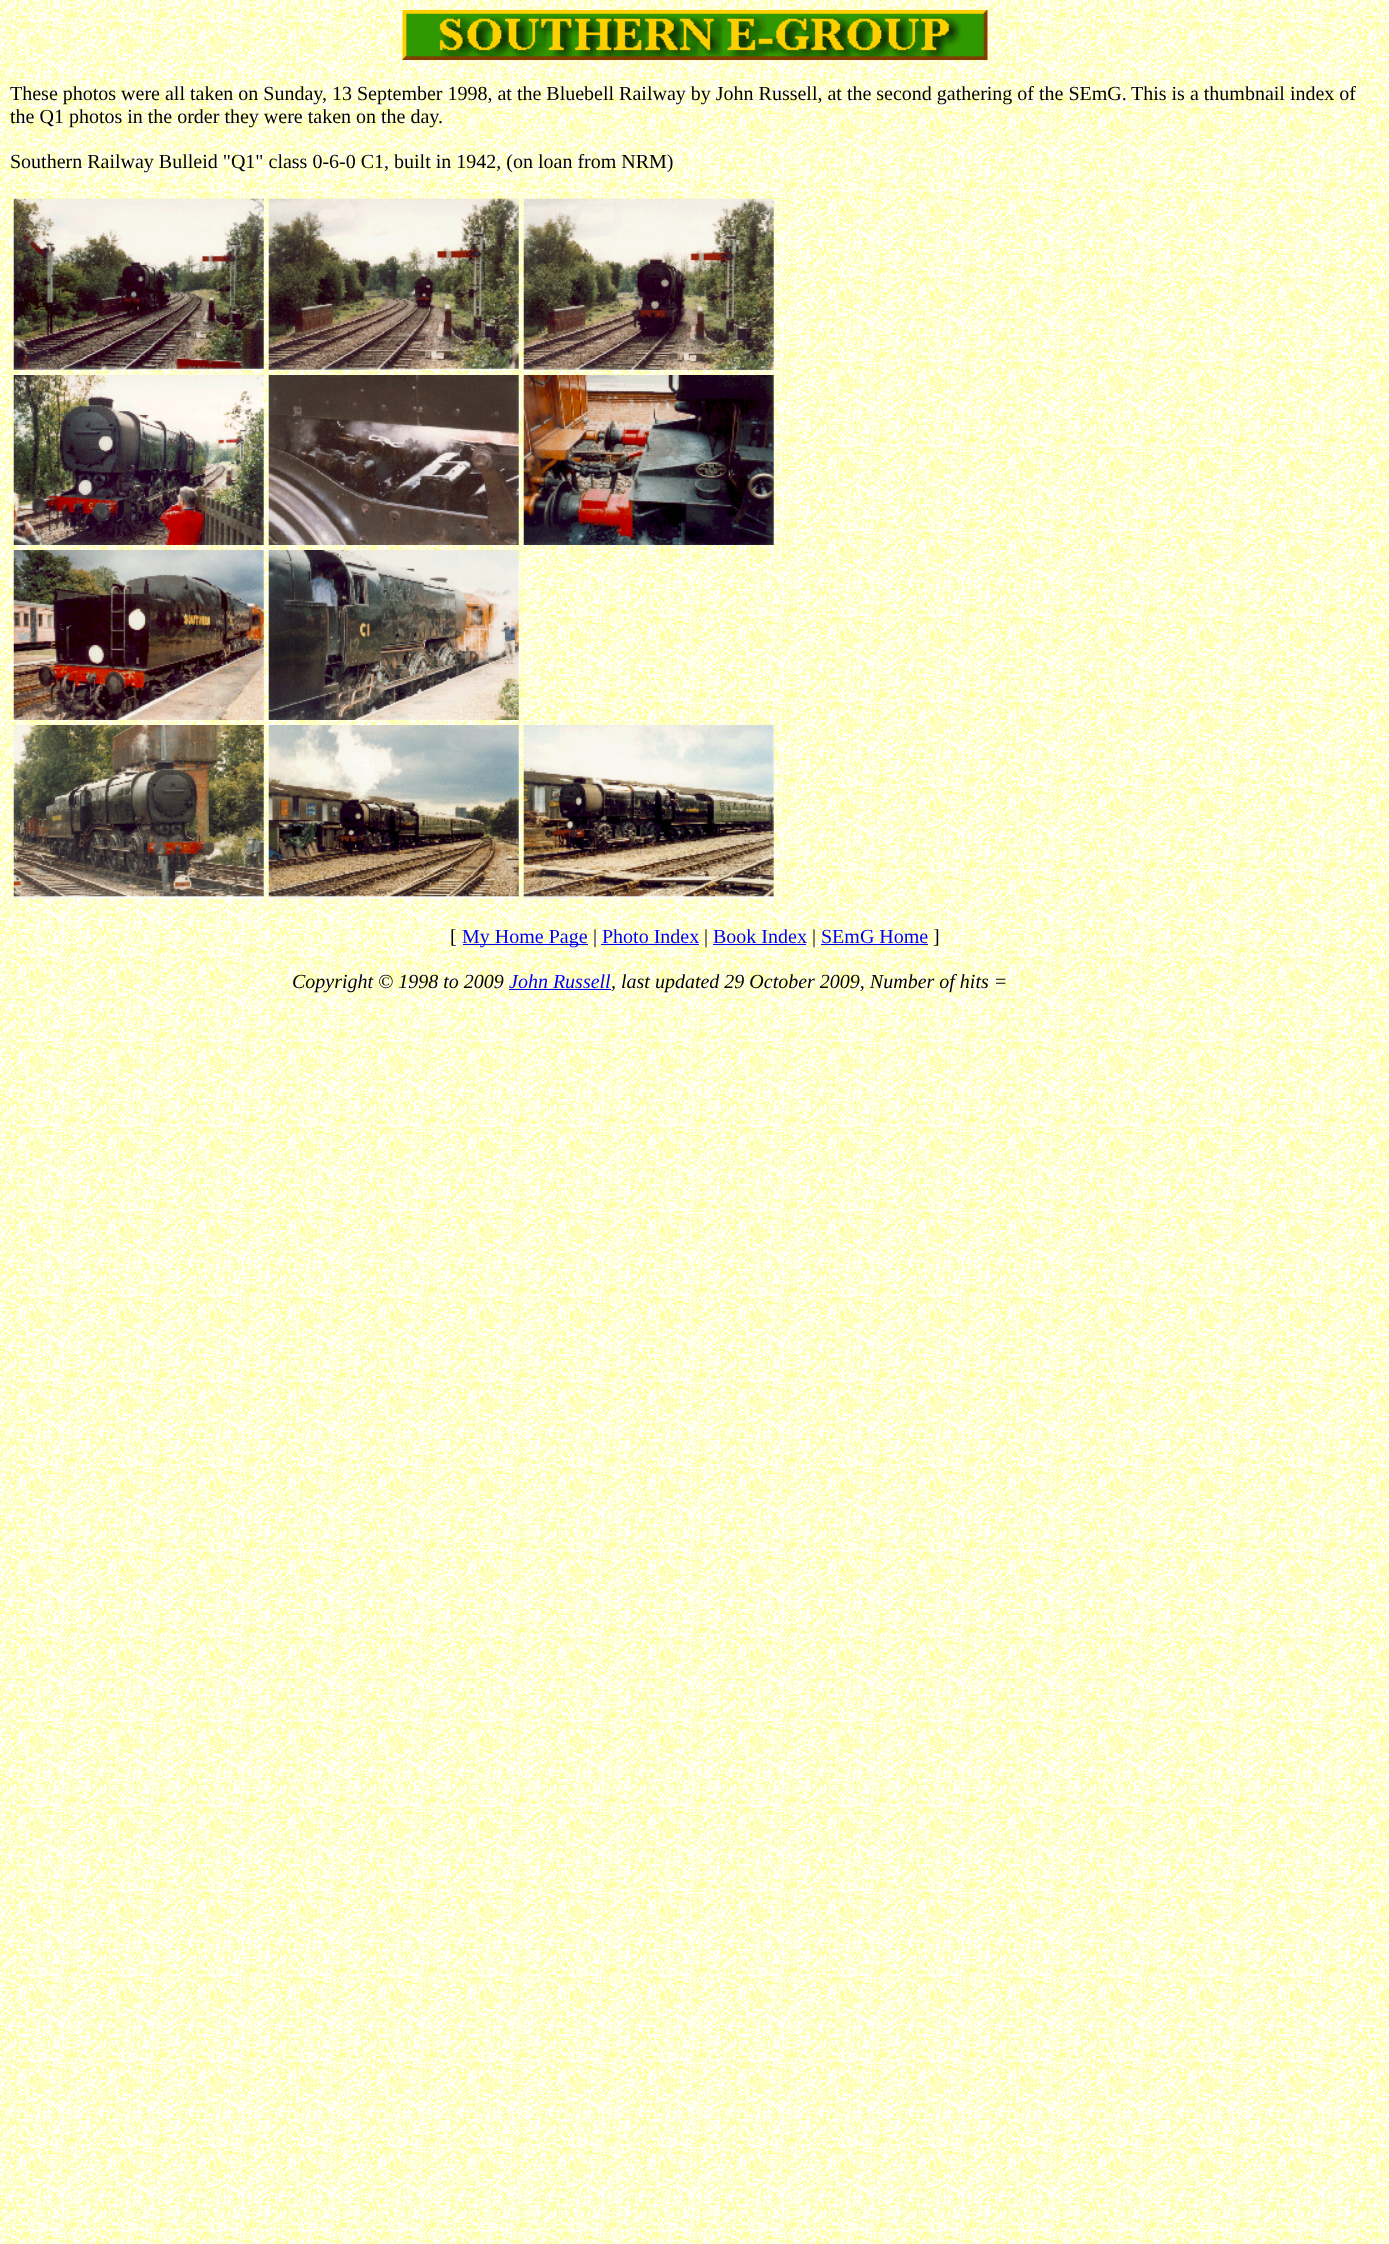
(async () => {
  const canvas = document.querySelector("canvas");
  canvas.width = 1389;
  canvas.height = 2244;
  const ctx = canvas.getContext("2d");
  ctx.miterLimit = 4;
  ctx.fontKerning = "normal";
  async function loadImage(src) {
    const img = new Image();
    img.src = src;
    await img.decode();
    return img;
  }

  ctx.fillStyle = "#ffffff";
  ctx.fillRect(0, 0, 1389, 2244);
  ctx.drawImage(await loadImage("img/1.png"), 0, 0, 1389, 2244);
  ctx.drawImage(await loadImage("img/2.png"), 402, 10, 586, 50);
  ctx.drawImage(await loadImage("img/3.png"), 13, 198, 251, 172);
  ctx.drawImage(await loadImage("img/4.png"), 268, 198, 251, 172);
  ctx.drawImage(await loadImage("img/5.png"), 523, 198, 251, 172);
  ctx.drawImage(await loadImage("img/6.png"), 13, 375, 251, 170);
  ctx.drawImage(await loadImage("img/7.png"), 268, 375, 251, 170);
  ctx.drawImage(await loadImage("img/8.png"), 523, 375, 251, 170);
  ctx.drawImage(await loadImage("img/9.png"), 13, 550, 251, 170);
  ctx.drawImage(await loadImage("img/10.png"), 268, 550, 251, 170);
  ctx.drawImage(await loadImage("img/11.png"), 13, 725, 251, 174);
  ctx.drawImage(await loadImage("img/12.png"), 268, 725, 251, 174);
  ctx.drawImage(await loadImage("img/13.png"), 523, 725, 251, 174);
  for (const [x, y, w, h, color] of [
    [463, 944, 125, 1, "#0000ee"],
    [601, 944, 98, 1, "#0000ee"],
    [713, 944, 93, 1, "#0000ee"],
    [821, 944, 107, 1, "#0000ee"],
    [509, 989, 102, 1, "#0000ee"],
  ]) {
    ctx.fillStyle = color;
    ctx.fillRect(x, y, w, h);
  }
  ctx.font = "20px Liberation Serif";
  ctx.fillStyle = "#000000";
  for (const [text, x, y] of [
    ["These photos were all taken on Sunday, 13 September 1998, at the Bluebell Railway by John Russell, at the second gathering of the SEmG.", 10, 100],
    ["This is a thumbnail index of", 1131, 100],
    ["the Q1 photos in the order they were taken on the day.", 10, 123],
    ["Southern Railway Bulleid \"Q1\" class 0-6-0 C1, built in 1942, (on loan from NRM)", 10, 168],
    ["[", 450, 943],
  ]) {
    ctx.fillText(text, x, y);
  }
  ctx.fillStyle = "#0000ee";
  ctx.fillText("My Home Page", 462, 943);
  ctx.fillStyle = "#000000";
  ctx.fillText("|", 593, 943);
  ctx.fillStyle = "#0000ee";
  ctx.fillText("Photo Index", 602, 943);
  ctx.fillStyle = "#000000";
  ctx.fillText("|", 704, 943);
  ctx.fillStyle = "#0000ee";
  ctx.fillText("Book Index", 713, 943);
  ctx.fillStyle = "#000000";
  ctx.fillText("|", 812, 943);
  ctx.fillStyle = "#0000ee";
  ctx.fillText("SEmG Home", 821, 943);
  ctx.fillStyle = "#000000";
  ctx.fillText("]", 933, 943);
  ctx.font = "italic 20px Liberation Serif";
  ctx.fillText("Copyright © 1998 to 2009", 292, 988);
  ctx.fillStyle = "#0000ee";
  ctx.fillText("John Russell", 509, 988);
  ctx.fillStyle = "#000000";
  ctx.fillText(", last updated 29 October 2009, Number of hits =", 611, 988);
})();
